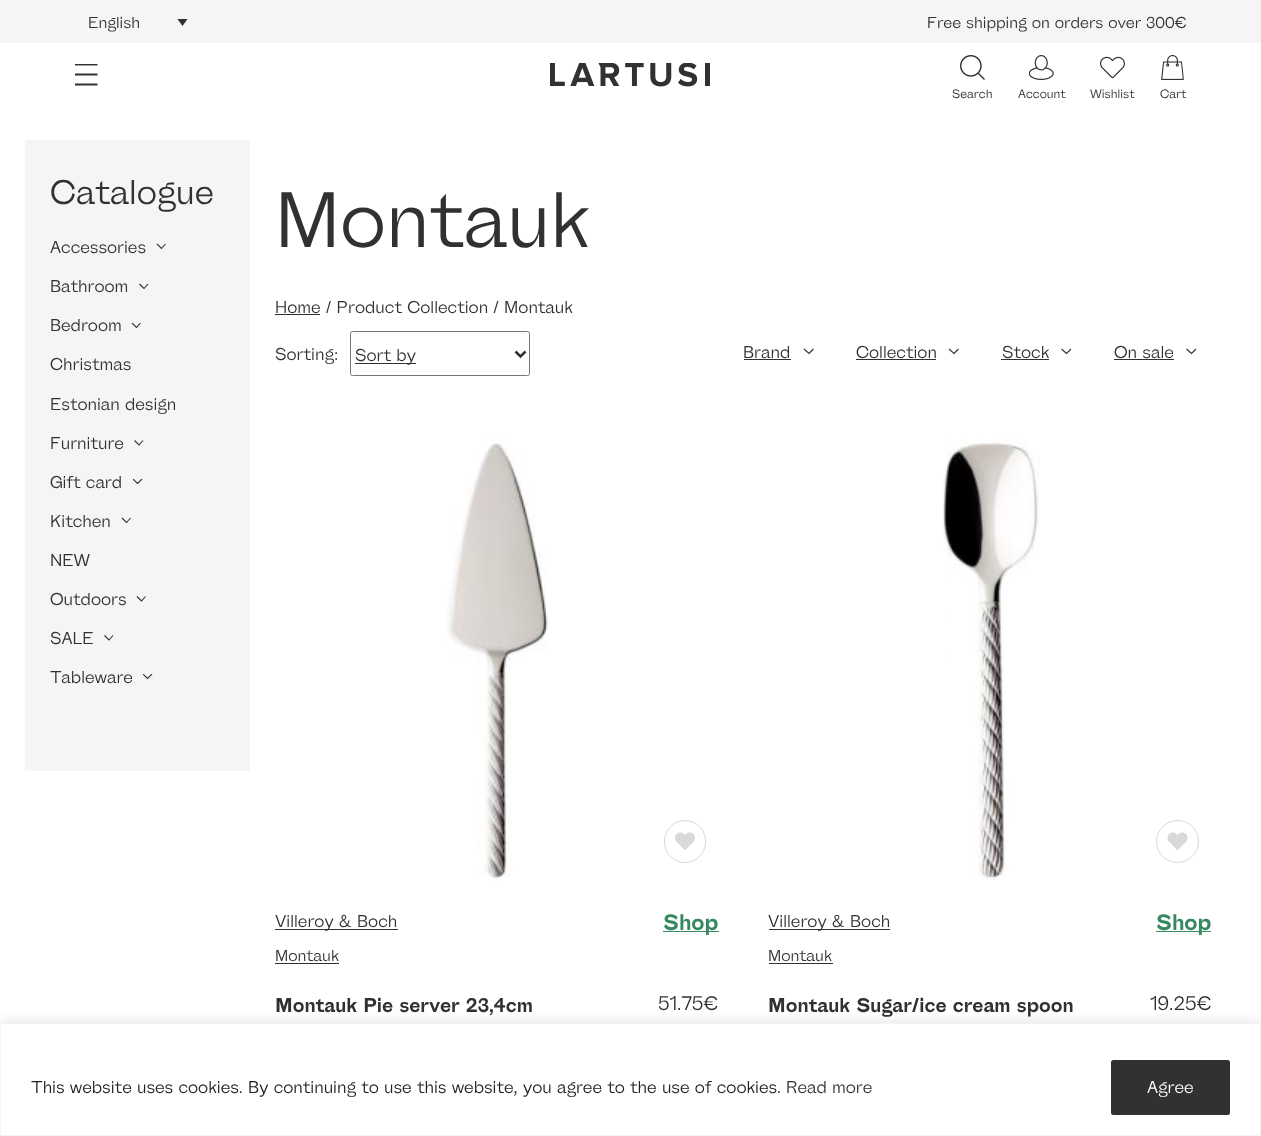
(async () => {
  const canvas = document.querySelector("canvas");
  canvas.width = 1261;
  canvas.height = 1136;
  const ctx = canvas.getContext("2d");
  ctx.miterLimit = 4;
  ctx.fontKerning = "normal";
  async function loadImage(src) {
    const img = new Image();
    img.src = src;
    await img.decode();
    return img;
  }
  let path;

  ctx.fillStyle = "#ffffff";
  ctx.fillRect(0, 0, 1261, 1136);
  ctx.fillStyle = "#f5f5f5";
  ctx.fillRect(0, 0, 1261, 43);
  ctx.fillStyle = "#313131";
  path = new Path2D("M177.5 19H187.5L182.5 26Z");
  ctx.fill(path);
  ctx.save();
  ctx.beginPath();
  ctx.rect(75, 64, 23, 22);
  ctx.clip();
  path = new Path2D("M75 64.5H97.5");
  ctx.strokeStyle = "#313131";
  ctx.lineWidth = 1.9;
  ctx.stroke(path);
  ctx.restore();
  path = new Path2D("M75 84.5H97.5M75 74.5H97.5");
  ctx.strokeStyle = "#313131";
  ctx.lineWidth = 1.9;
  ctx.stroke(path);
  ctx.drawImage(await loadImage("img/1.png"), 550, 63, 160, 24);
  ctx.drawImage(await loadImage("img/2.png"), 960, 55, 25, 25);
  ctx.drawImage(await loadImage("img/3.png"), 1029, 55, 25, 25);
  ctx.drawImage(await loadImage("img/4.png"), 1100, 56, 25, 23);
  ctx.drawImage(await loadImage("img/5.png"), 1161, 55, 23, 25);
  ctx.fillStyle = "#f5f5f5";
  ctx.fillRect(25, 140, 225, 631);
  path = new Path2D("M157 244L161.5 248.5L165.5 244M139.5 284L144 288.5L148 284");
  ctx.lineWidth = 1.1;
  ctx.stroke(path);
  ctx.save();
  ctx.beginPath();
  ctx.rect(131, 323, 10, 5);
  ctx.clip();
  path = new Path2D("M132 323L136.5 327.5L140.5 323");
  ctx.stroke(path);
  ctx.restore();
  path = new Path2D("M134.5 440.5L139 445L143 440.5");
  ctx.stroke(path);
  ctx.save();
  ctx.beginPath();
  ctx.rect(133, 479, 10, 5);
  ctx.clip();
  path = new Path2D("M133 479L137.5 483.5L142 479");
  ctx.stroke(path);
  ctx.restore();
  path = new Path2D("M122 518L126.5 522.5L130.5 518");
  ctx.stroke(path);
  path = new Path2D("M137 596.5L141.5 601L145.5 596.5M104.5 635.5L109 640L113 635.5");
  ctx.stroke(path);
  ctx.save();
  ctx.beginPath();
  ctx.rect(143, 674, 10, 6);
  ctx.clip();
  path = new Path2D("M143 674L147.5 678.5L152 674");
  ctx.stroke(path);
  ctx.restore();
  ctx.fillStyle = "#313131";
  ctx.fillRect(275, 314, 45, 1);
  ctx.beginPath();
  ctx.roundRect(350.5, 331.5, 179, 44, 2);
  ctx.strokeStyle = "#767676";
  ctx.lineWidth = 1;
  ctx.stroke();
  path = new Path2D("M515.5 351.5L520.5 356.5L525.5 351.5");
  ctx.strokeStyle = "#313131";
  ctx.lineWidth = 2.5;
  ctx.stroke(path);
  ctx.fillRect(355, 363, 61, 1);
  ctx.fillRect(744, 359, 47, 1);
  path = new Path2D("M804 349L809 353.5L813.5 349");
  ctx.lineWidth = 1.1;
  ctx.stroke(path);
  ctx.fillRect(856, 359, 80, 1);
  path = new Path2D("M949 349L954 353.5L958.5 349");
  ctx.stroke(path);
  ctx.fillRect(1001, 359, 48, 1);
  path = new Path2D("M1061.5 349L1066.5 353.5L1071 349");
  ctx.stroke(path);
  ctx.fillRect(1114, 359, 60, 1);
  path = new Path2D("M1186.5 349L1191.5 353.5L1196 349");
  ctx.stroke(path);
  ctx.drawImage(await loadImage("img/6.png"), 446, 439, 102, 443);
  ctx.beginPath();
  ctx.roundRect(664.5, 820.5, 41, 42, 20.5);
  ctx.strokeStyle = "#d9d9d9";
  ctx.lineWidth = 1;
  ctx.stroke();
  ctx.drawImage(await loadImage("img/7.png"), 675, 832, 20, 18);
  for (const [x, y, w, h, color] of [
    [275, 929, 123, 1, "#313131"],
    [275, 963, 64, 1, "#313131"],
    [663, 931, 56, 1, "#358860"],
  ]) {
    ctx.fillStyle = color;
    ctx.fillRect(x, y, w, h);
  }
  ctx.drawImage(await loadImage("img/8.png"), 942, 439, 98, 441);
  ctx.beginPath();
  ctx.arc(1177.5, 841.5, 21, 0, Math.PI * 2);
  ctx.stroke();
  ctx.drawImage(await loadImage("img/9.png"), 1167, 832, 21, 18);
  for (const [x, y, w, h, color] of [
    [769, 929, 121, 1, "#313131"],
    [769, 963, 64, 1, "#313131"],
    [1156, 931, 55, 1, "#358860"],
  ]) {
    ctx.fillStyle = color;
    ctx.fillRect(x, y, w, h);
  }
  ctx.fillStyle = "rgba(172, 171, 171, 0.3)";
  ctx.filter = "blur(6px)";
  ctx.beginPath();
  ctx.rect(0, 1021, 1261, 114);
  ctx.fill();
  ctx.filter = "none";
  ctx.fillStyle = "#ffffff";
  ctx.beginPath();
  ctx.rect(0.5, 1023.5, 1260, 112);
  ctx.fill();
  ctx.strokeStyle = "#f4f4f4";
  ctx.stroke();
  ctx.fillStyle = "#313131";
  ctx.beginPath();
  ctx.roundRect(1112.5, 1061.5, 116, 52, 1);
  ctx.fill();
  ctx.strokeStyle = "#313131";
  ctx.lineWidth = 3;
  ctx.stroke();
  ctx.font = "16.25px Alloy";
  ctx.fillText("English", 88, 28);
  ctx.fillText("Free shipping on orders over 300€", 927, 28);
  ctx.font = "12.5px Alloy";
  for (const [text, x, y] of [
    ["Search", 952, 98],
    ["Account", 1018, 98],
    ["Wishlist", 1090, 98],
    ["Cart", 1160, 98],
  ]) {
    ctx.fillText(text, x, y);
  }
  ctx.font = "35px Alloy";
  ctx.fillText("Catalogue", 50, 204);
  ctx.font = "17.5px Alloy";
  for (const [text, x, y] of [
    ["Accessories", 50, 253],
    ["Bathroom", 50, 292],
    ["Bedroom", 50, 331],
    ["Christmas", 50, 370],
    ["Estonian design", 50, 410],
    ["Furniture", 50, 449],
    ["Gift card", 50, 488],
    ["Kitchen", 50, 527],
    ["NEW", 50, 566],
    ["Outdoors", 50, 605],
    ["SALE", 50, 644],
    ["Tableware", 50, 683],
  ]) {
    ctx.fillText(text, x, y);
  }
  ctx.font = "80px Alloy";
  ctx.fillText("Montauk", 275, 247);
  ctx.font = "17.5px Alloy";
  for (const [text, x, y] of [
    ["Home / Product Collection / Montauk", 275, 313],
    ["Sorting:", 275, 360],
    ["Sort by", 355, 361],
    ["Brand", 743, 358],
    ["Collection", 856, 358],
    ["Stock", 1002, 358],
    ["On sale", 1114, 358],
    ["Villeroy & Boch", 275, 927],
  ]) {
    ctx.fillText(text, x, y);
  }
  ctx.font = "16.25px Alloy";
  ctx.fillText("Montauk", 275, 961);
  ctx.font = "bold 22.5px Alloy";
  ctx.fillStyle = "#358860";
  ctx.fillText("Shop", 663, 930);
  ctx.font = "bold 20px Alloy";
  ctx.fillStyle = "#313131";
  ctx.fillText("Montauk Pie server 23,4cm", 275, 1012);
  ctx.font = "20px Alloy";
  ctx.fillText("51.75€", 658, 1010);
  ctx.font = "17.5px Alloy";
  ctx.fillText("Villeroy & Boch", 768, 927);
  ctx.font = "16.25px Alloy";
  ctx.fillText("Montauk", 768, 961);
  ctx.font = "bold 22.5px Alloy";
  ctx.fillStyle = "#358860";
  ctx.fillText("Shop", 1156, 930);
  ctx.font = "bold 20px Alloy";
  ctx.fillStyle = "#313131";
  ctx.fillText("Montauk Sugar/ice cream spoon", 768, 1012);
  ctx.font = "20px Alloy";
  ctx.fillText("19.25€", 1150, 1010);
  ctx.font = "17.5px Alloy";
  ctx.fillStyle = "#212121";
  ctx.fillText("This website uses cookies. By continuing to use this website, you agree to the use of cookies.", 31, 1093);
  ctx.fillStyle = "#313131";
  ctx.fillText("Read more", 786, 1093);
  ctx.fillStyle = "#ffffff";
  ctx.fillText("Agree", 1147, 1093);
})();
